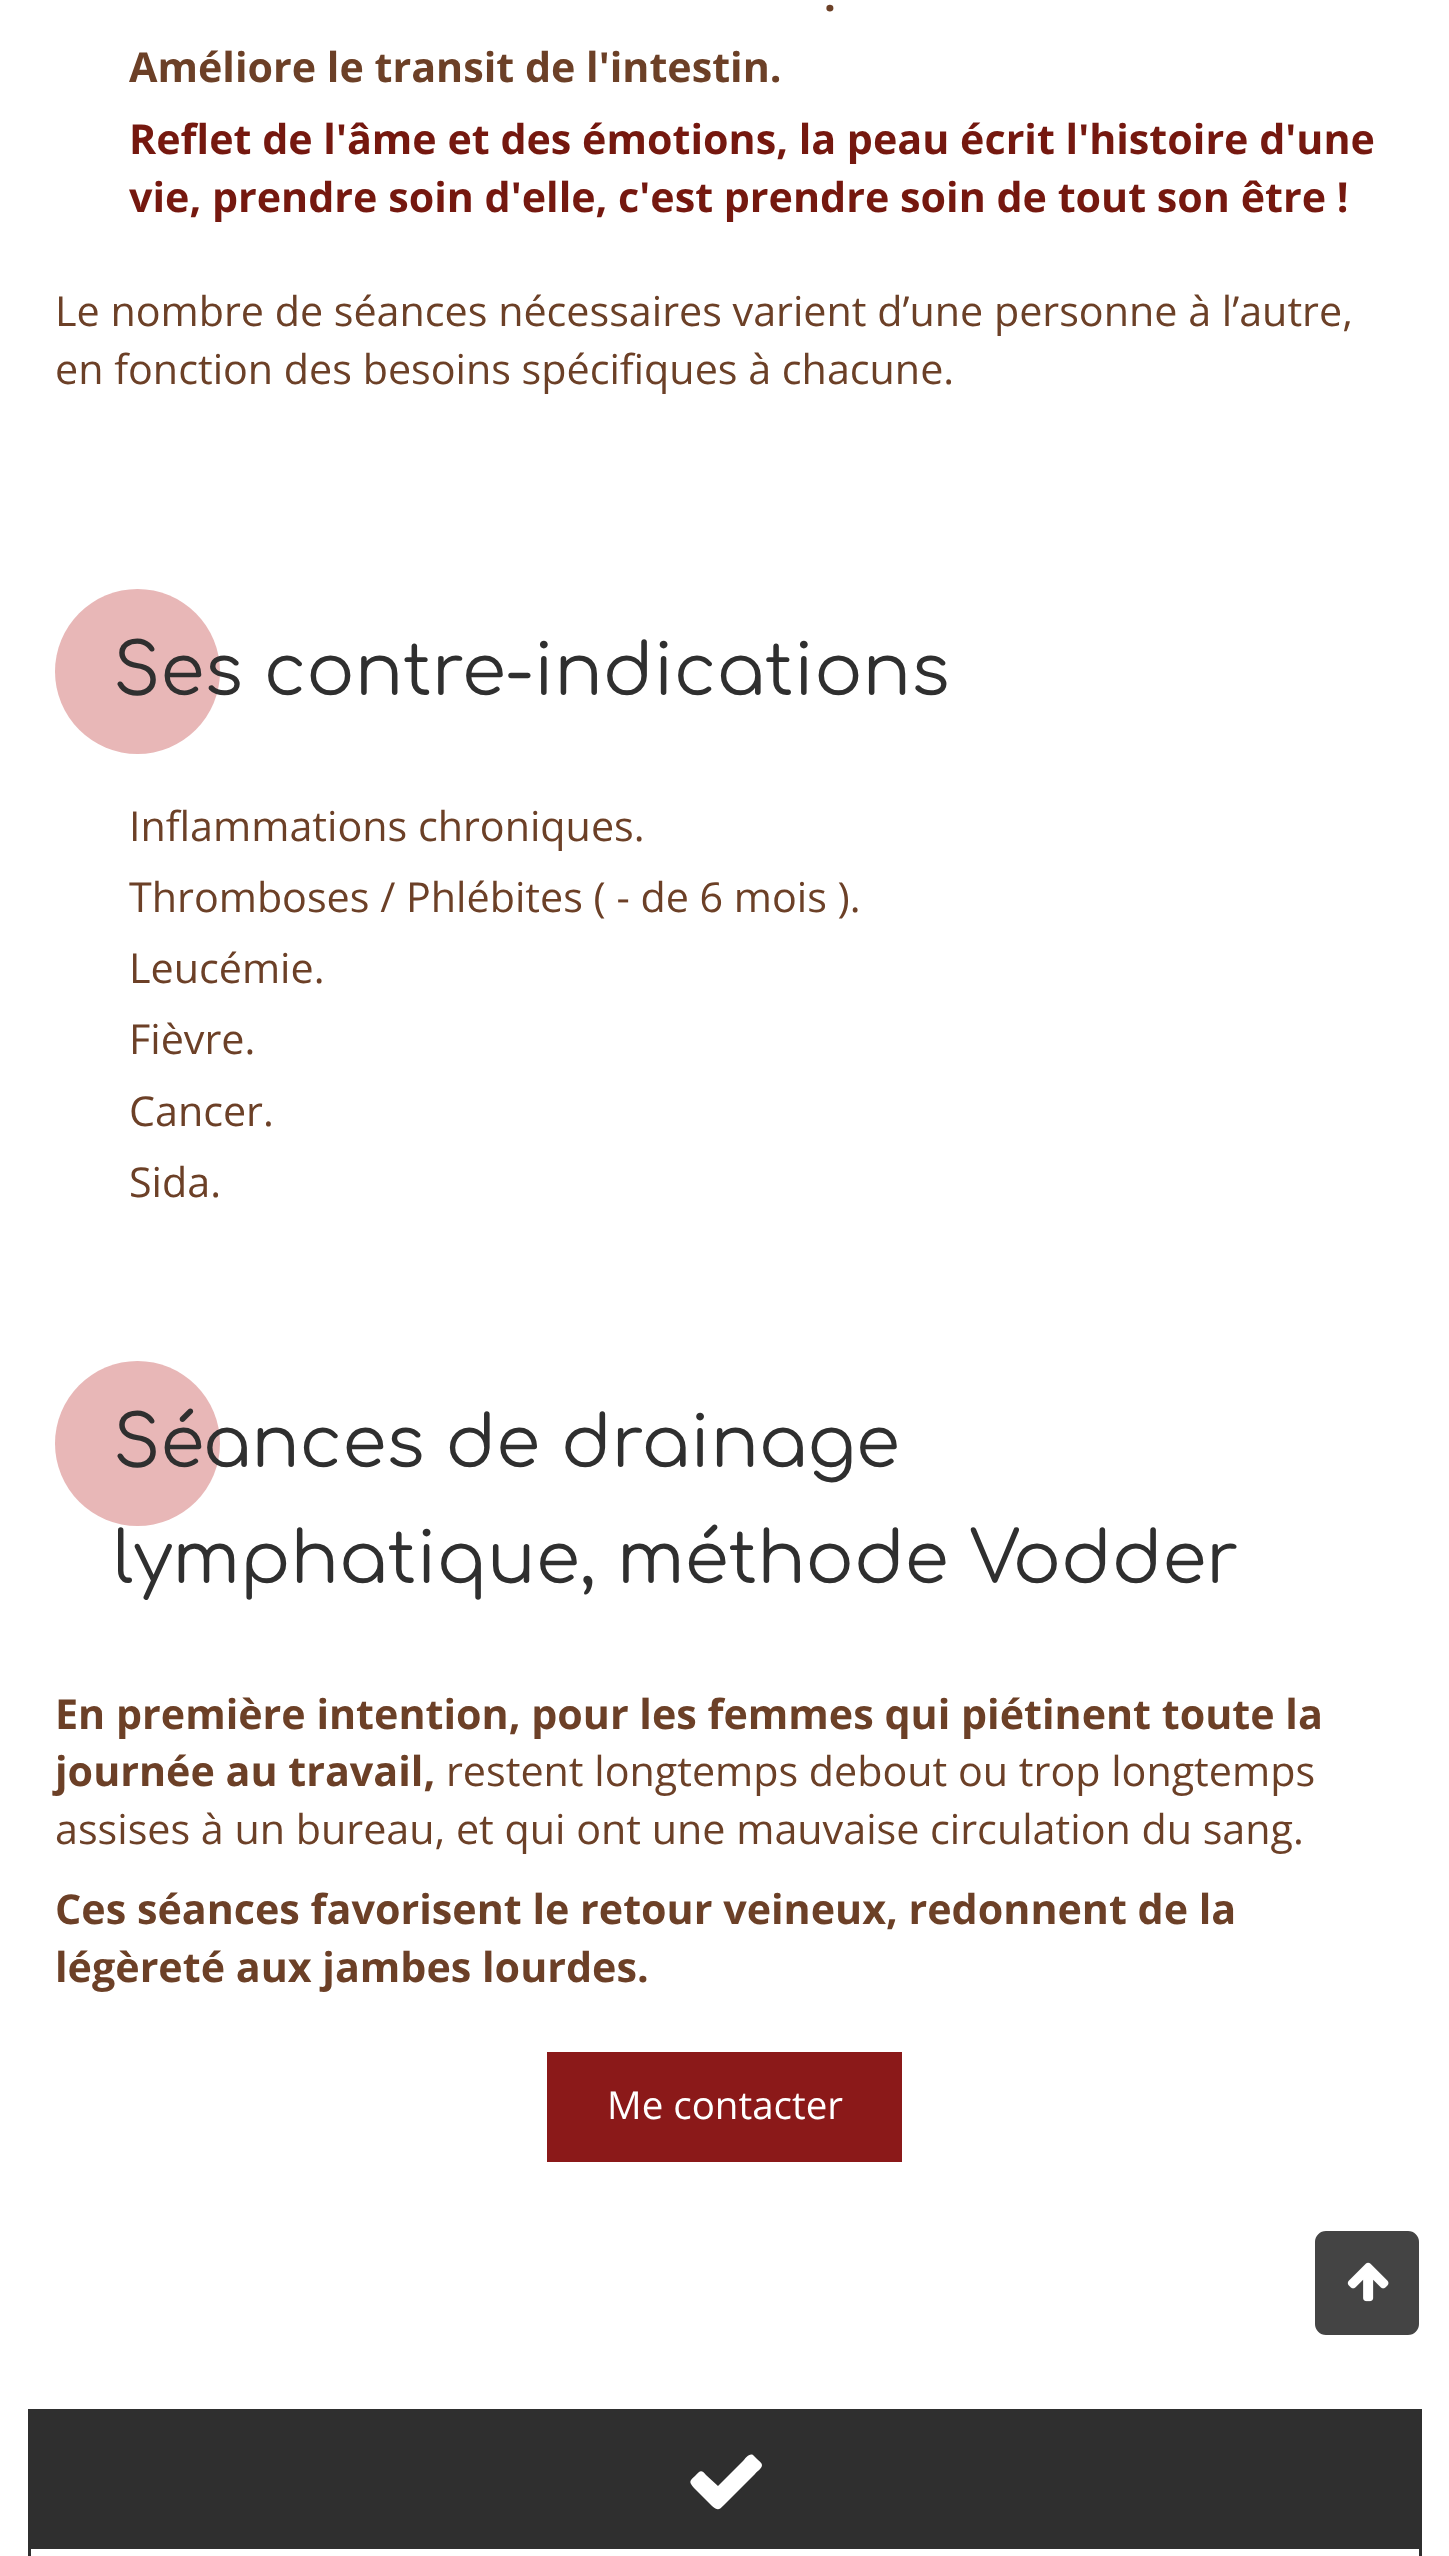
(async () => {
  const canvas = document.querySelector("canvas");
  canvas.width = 1449;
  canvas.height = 2556;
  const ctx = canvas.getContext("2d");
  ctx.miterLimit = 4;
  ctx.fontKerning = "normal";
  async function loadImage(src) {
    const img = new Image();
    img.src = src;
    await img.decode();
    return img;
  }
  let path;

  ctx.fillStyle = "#ffffff";
  ctx.fillRect(0, 0, 1449, 2556);
  ctx.fillStyle = "#e8b7b7";
  ctx.beginPath();
  ctx.arc(137.5, 671.5, 82.5, 0, Math.PI * 2);
  ctx.fill();
  ctx.beginPath();
  ctx.arc(137.5, 1443.5, 82.5, 0, Math.PI * 2);
  ctx.fill();
  ctx.fillStyle = "#8b1919";
  ctx.fillRect(547, 2052, 355, 110);
  ctx.strokeStyle = "#2f2f2f";
  ctx.lineWidth = 3;
  ctx.strokeRect(29.5, 2410.5, 1391, 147);
  ctx.fillStyle = "#2f2f2f";
  ctx.fillRect(31, 2412, 1388, 137);
  ctx.fillStyle = "#ffffff";
  path = new Path2D("M762 2465C762 2469 756 2472 755 2474L724 2505C719 2510 718 2511 712 2506L694 2488C689 2482 689 2481 695 2476C700 2471 701 2469 706 2475L718 2486L743 2461C745 2459 749 2453 753 2455L757 2459C759 2461 762 2463 762 2465Z");
  ctx.fill(path);
  ctx.fillStyle = "#444444";
  ctx.beginPath();
  ctx.roundRect(1313.5, 2229.5, 107, 107, 12.5);
  ctx.fill();
  ctx.strokeStyle = "#ffffff";
  ctx.stroke();
  ctx.drawImage(await loadImage("img/1.png"), 1347, 2262, 42, 40);
  ctx.font = "bold 41.25px Open Sans";
  ctx.fillStyle = "#6c4027";
  ctx.fillText(".", 824, 11);
  ctx.fillText("Améliore le transit de l'intestin.", 129, 82);
  ctx.fillStyle = "#75180f";
  ctx.fillText("Reflet de l'âme et des émotions, la peau écrit l'histoire d'une", 129, 154);
  ctx.fillText("vie, prendre soin d'elle, c'est prendre soin de tout son être !", 129, 212);
  ctx.font = "41.25px Open Sans";
  ctx.fillStyle = "#6c4027";
  ctx.fillText("Le nombre de séances nécessaires varient d’une personne à l’autre,", 55, 326);
  ctx.fillText("en fonction des besoins spécifiques à chacune.", 55, 384);
  ctx.font = "71.5px Comfortaa";
  ctx.fillStyle = "#2f2f2f";
  ctx.fillText("Ses contre-indications", 113, 695);
  ctx.font = "41.25px Open Sans";
  ctx.fillStyle = "#6c4027";
  for (const [text, x, y] of [
    ["Inflammations chroniques.", 129, 841],
    ["Thromboses / Phlébites ( - de 6 mois ).", 129, 912],
    ["Leucémie.", 129, 983],
    ["Fièvre.", 129, 1054],
    ["Cancer.", 129, 1126],
    ["Sida.", 129, 1197],
  ]) {
    ctx.fillText(text, x, y);
  }
  ctx.font = "71.5px Comfortaa";
  ctx.fillStyle = "#2f2f2f";
  ctx.fillText("Séances de drainage", 113, 1467);
  ctx.fillText("lymphatique, méthode Vodder", 113, 1583);
  ctx.font = "bold 41.25px Open Sans";
  ctx.fillStyle = "#6c4027";
  ctx.fillText("En première intention, pour les femmes qui piétinent toute la", 55, 1729);
  ctx.fillText("journée au travail,", 55, 1786);
  ctx.font = "41.25px Open Sans";
  ctx.fillText("restent longtemps debout ou trop longtemps", 446, 1786);
  ctx.fillText("assises à un bureau, et qui ont une mauvaise circulation du sang.", 55, 1844);
  ctx.font = "bold 41.25px Open Sans";
  ctx.fillText("Ces séances favorisent le retour veineux, redonnent de la", 55, 1924);
  ctx.fillText("légèreté aux jambes lourdes.", 55, 1982);
  ctx.font = "38.5px Open Sans";
  ctx.fillStyle = "#ffffff";
  ctx.fillText("Me contacter", 607, 2119);
})();
